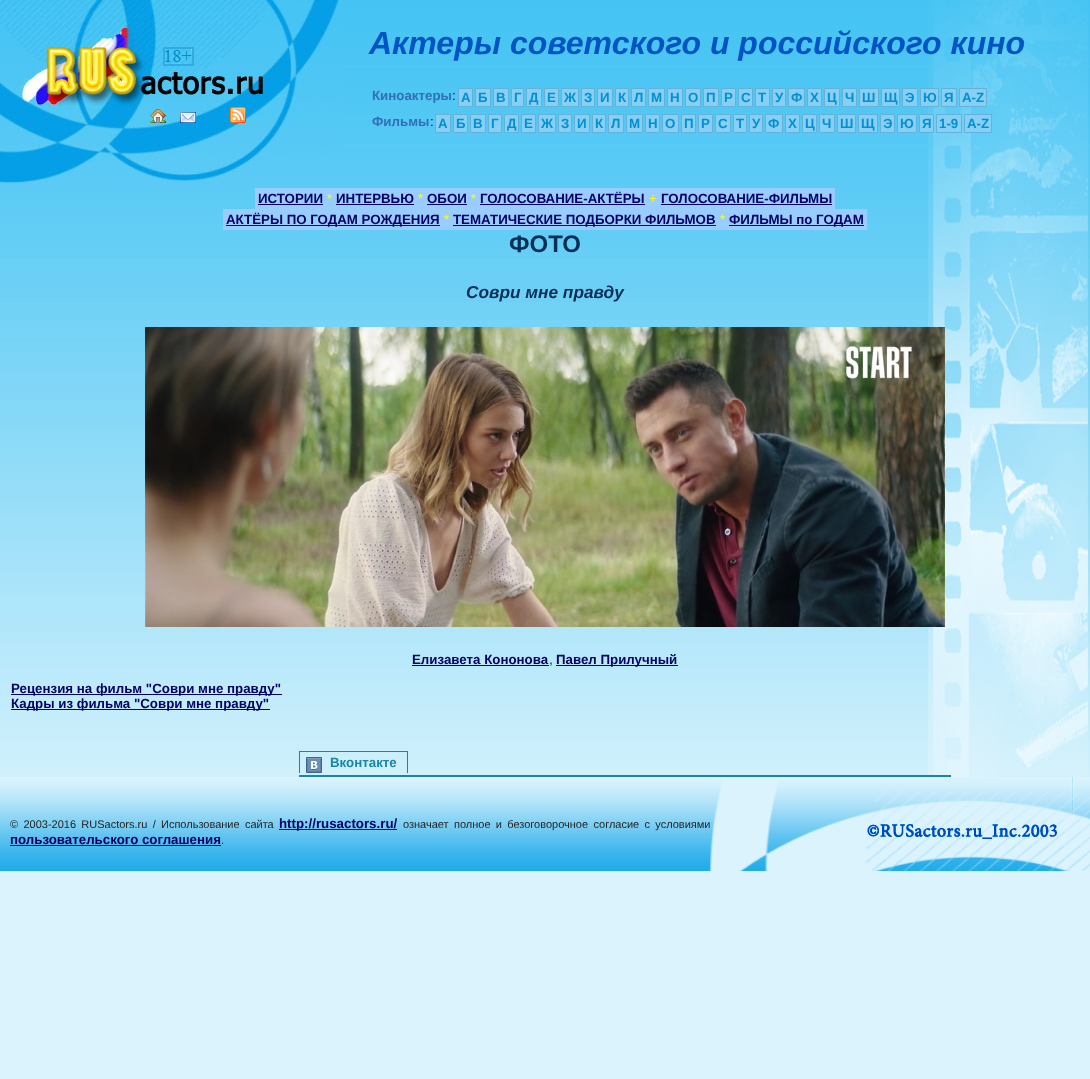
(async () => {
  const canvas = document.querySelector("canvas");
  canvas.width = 1090;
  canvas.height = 1079;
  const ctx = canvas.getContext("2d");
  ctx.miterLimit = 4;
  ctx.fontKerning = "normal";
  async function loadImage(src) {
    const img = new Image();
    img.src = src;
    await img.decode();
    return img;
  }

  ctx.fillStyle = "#dbf3fd";
  ctx.fillRect(0, 0, 1090, 1079);
  ctx.drawImage(await loadImage("img/1.png"), 0, 0, 1090, 777);
  ctx.drawImage(await loadImage("img/2.png"), 928, 0, 160, 777);
  ctx.drawImage(await loadImage("img/3.png"), 0, 0, 344, 184);
  ctx.drawImage(await loadImage("img/4.png"), 150, 109, 16, 14);
  ctx.drawImage(await loadImage("img/5.png"), 180, 112, 16, 11);
  ctx.drawImage(await loadImage("img/6.png"), 230, 107, 16, 16);
  ctx.fillStyle = "#86cff5";
  ctx.beginPath();
  ctx.rect(458.5, 88.5, 14, 18);
  ctx.fill();
  ctx.strokeStyle = "#66b1d8";
  ctx.stroke();
  ctx.beginPath();
  ctx.rect(475.5, 88.5, 15, 18);
  ctx.fill();
  ctx.stroke();
  ctx.beginPath();
  ctx.rect(493.5, 88.5, 15, 18);
  ctx.fill();
  ctx.stroke();
  ctx.beginPath();
  ctx.rect(511.5, 88.5, 12, 18);
  ctx.fill();
  ctx.stroke();
  ctx.beginPath();
  ctx.rect(526.5, 88.5, 15, 18);
  ctx.fill();
  ctx.stroke();
  ctx.beginPath();
  ctx.rect(544.5, 88.5, 14, 18);
  ctx.fill();
  ctx.stroke();
  ctx.beginPath();
  ctx.rect(561.5, 88.5, 17, 18);
  ctx.fill();
  ctx.stroke();
  ctx.beginPath();
  ctx.rect(581.5, 88.5, 13, 18);
  ctx.fill();
  ctx.stroke();
  ctx.beginPath();
  ctx.rect(597.5, 88.5, 15, 18);
  ctx.fill();
  ctx.stroke();
  ctx.beginPath();
  ctx.rect(615.5, 88.5, 13, 18);
  ctx.fill();
  ctx.stroke();
  ctx.beginPath();
  ctx.rect(631.5, 88.5, 14, 18);
  ctx.fill();
  ctx.stroke();
  ctx.beginPath();
  ctx.rect(648.5, 88.5, 16, 18);
  ctx.fill();
  ctx.stroke();
  ctx.beginPath();
  ctx.rect(667.5, 88.5, 15, 18);
  ctx.fill();
  ctx.stroke();
  ctx.beginPath();
  ctx.rect(685.5, 88.5, 15, 18);
  ctx.fill();
  ctx.stroke();
  ctx.beginPath();
  ctx.rect(703.5, 88.5, 15, 18);
  ctx.fill();
  ctx.stroke();
  ctx.beginPath();
  ctx.rect(721.5, 88.5, 14, 18);
  ctx.fill();
  ctx.stroke();
  ctx.beginPath();
  ctx.rect(738.5, 88.5, 14, 18);
  ctx.fill();
  ctx.stroke();
  ctx.beginPath();
  ctx.rect(755.5, 88.5, 14, 18);
  ctx.fill();
  ctx.stroke();
  ctx.beginPath();
  ctx.rect(772.5, 88.5, 13, 18);
  ctx.fill();
  ctx.stroke();
  ctx.beginPath();
  ctx.rect(788.5, 88.5, 16, 18);
  ctx.fill();
  ctx.stroke();
  ctx.beginPath();
  ctx.rect(807.5, 88.5, 14, 18);
  ctx.fill();
  ctx.stroke();
  ctx.beginPath();
  ctx.rect(824.5, 88.5, 15, 18);
  ctx.fill();
  ctx.stroke();
  ctx.beginPath();
  ctx.rect(842.5, 88.5, 14, 18);
  ctx.fill();
  ctx.stroke();
  ctx.beginPath();
  ctx.rect(859.5, 88.5, 19, 18);
  ctx.fill();
  ctx.stroke();
  ctx.beginPath();
  ctx.rect(881.5, 88.5, 18, 18);
  ctx.fill();
  ctx.stroke();
  ctx.beginPath();
  ctx.rect(902.5, 88.5, 15, 18);
  ctx.fill();
  ctx.stroke();
  ctx.beginPath();
  ctx.rect(920.5, 88.5, 18, 18);
  ctx.fill();
  ctx.stroke();
  ctx.beginPath();
  ctx.rect(941.5, 88.5, 15, 18);
  ctx.fill();
  ctx.stroke();
  ctx.beginPath();
  ctx.rect(959.5, 88.5, 27, 18);
  ctx.fill();
  ctx.stroke();
  ctx.beginPath();
  ctx.rect(435.5, 114.5, 15, 18);
  ctx.fill();
  ctx.stroke();
  ctx.beginPath();
  ctx.rect(453.5, 114.5, 14, 18);
  ctx.fill();
  ctx.stroke();
  ctx.beginPath();
  ctx.rect(470.5, 114.5, 15, 18);
  ctx.fill();
  ctx.stroke();
  ctx.beginPath();
  ctx.rect(488.5, 114.5, 13, 18);
  ctx.fill();
  ctx.stroke();
  ctx.beginPath();
  ctx.rect(504.5, 114.5, 14, 18);
  ctx.fill();
  ctx.stroke();
  ctx.beginPath();
  ctx.rect(521.5, 114.5, 14, 18);
  ctx.fill();
  ctx.stroke();
  ctx.beginPath();
  ctx.rect(538.5, 114.5, 17, 18);
  ctx.fill();
  ctx.stroke();
  ctx.beginPath();
  ctx.rect(558.5, 114.5, 13, 18);
  ctx.fill();
  ctx.stroke();
  ctx.beginPath();
  ctx.rect(574.5, 114.5, 15, 18);
  ctx.fill();
  ctx.stroke();
  ctx.beginPath();
  ctx.rect(592.5, 114.5, 13, 18);
  ctx.fill();
  ctx.stroke();
  ctx.beginPath();
  ctx.rect(608.5, 114.5, 15, 18);
  ctx.fill();
  ctx.stroke();
  ctx.beginPath();
  ctx.rect(626.5, 114.5, 16, 18);
  ctx.fill();
  ctx.stroke();
  ctx.beginPath();
  ctx.rect(645.5, 114.5, 14, 18);
  ctx.fill();
  ctx.stroke();
  ctx.beginPath();
  ctx.rect(662.5, 114.5, 16, 18);
  ctx.fill();
  ctx.stroke();
  ctx.beginPath();
  ctx.rect(681.5, 114.5, 14, 18);
  ctx.fill();
  ctx.stroke();
  ctx.beginPath();
  ctx.rect(698.5, 114.5, 14, 18);
  ctx.fill();
  ctx.stroke();
  ctx.beginPath();
  ctx.rect(715.5, 114.5, 15, 18);
  ctx.fill();
  ctx.stroke();
  ctx.beginPath();
  ctx.rect(733.5, 114.5, 13, 18);
  ctx.fill();
  ctx.stroke();
  ctx.beginPath();
  ctx.rect(749.5, 114.5, 13, 18);
  ctx.fill();
  ctx.stroke();
  ctx.beginPath();
  ctx.rect(765.5, 114.5, 17, 18);
  ctx.fill();
  ctx.stroke();
  ctx.beginPath();
  ctx.rect(785.5, 114.5, 14, 18);
  ctx.fill();
  ctx.stroke();
  ctx.beginPath();
  ctx.rect(802.5, 114.5, 14, 18);
  ctx.fill();
  ctx.stroke();
  ctx.beginPath();
  ctx.rect(819.5, 114.5, 15, 18);
  ctx.fill();
  ctx.stroke();
  ctx.beginPath();
  ctx.rect(837.5, 114.5, 18, 18);
  ctx.fill();
  ctx.stroke();
  ctx.beginPath();
  ctx.rect(858.5, 114.5, 19, 18);
  ctx.fill();
  ctx.stroke();
  ctx.beginPath();
  ctx.rect(880.5, 114.5, 14, 18);
  ctx.fill();
  ctx.stroke();
  ctx.beginPath();
  ctx.rect(897.5, 114.5, 19, 18);
  ctx.fill();
  ctx.stroke();
  ctx.beginPath();
  ctx.rect(919.5, 114.5, 14, 18);
  ctx.fill();
  ctx.stroke();
  ctx.beginPath();
  ctx.rect(936.5, 114.5, 25, 18);
  ctx.fill();
  ctx.stroke();
  ctx.beginPath();
  ctx.rect(964.5, 114.5, 27, 18);
  ctx.fill();
  ctx.stroke();
  for (const [x, y, w, h, color] of [
    [255, 188, 580, 21, "#99ccff"],
    [258, 204, 65, 1, "#000066"],
    [336, 204, 78, 1, "#000066"],
    [427, 204, 40, 1, "#000066"],
    [480, 204, 165, 1, "#000066"],
    [661, 204, 171, 1, "#000066"],
    [223, 209, 644, 21, "#99ccff"],
    [226, 225, 214, 1, "#000066"],
    [453, 225, 263, 1, "#000066"],
    [729, 225, 135, 1, "#000066"],
  ]) {
    ctx.fillStyle = color;
    ctx.fillRect(x, y, w, h);
  }
  ctx.drawImage(await loadImage("img/7.png"), 145, 327, 800, 300);
  for (const [x, y, w, h, color] of [
    [412, 665, 137, 1, "#000066"],
    [556, 665, 122, 1, "#000066"],
    [11, 694, 271, 1, "#000066"],
    [11, 709, 259, 1, "#000066"],
  ]) {
    ctx.fillStyle = color;
    ctx.fillRect(x, y, w, h);
  }
  ctx.drawImage(await loadImage("img/8.png"), 306, 757, 16, 16);
  for (const [x, y, w, h, color] of [
    [299, 751, 109, 1, "#1786aa"],
    [407, 751, 1, 22, "#1786aa"],
    [299, 751, 1, 22, "#1786aa"],
    [299, 775, 652, 2, "#1786aa"],
  ]) {
    ctx.fillStyle = color;
    ctx.fillRect(x, y, w, h);
  }
  ctx.drawImage(await loadImage("img/9.png"), 0, 777, 710, 94);
  ctx.fillStyle = "#000066";
  ctx.fillRect(279, 829, 118, 1);
  ctx.fillRect(10, 845, 211, 1);
  ctx.drawImage(await loadImage("img/10.png"), 710, 777, 380, 94);
  ctx.font = "italic bold 32px Liberation Sans";
  ctx.fillStyle = "#0254c3";
  ctx.fillText("Актеры советского и российского кино", 369, 54);
  ctx.font = "bold 13.3px Liberation Sans";
  ctx.fillStyle = "#326fb8";
  ctx.fillText("Киноактеры", 372, 100);
  ctx.font = "13.3px Liberation Sans";
  ctx.fillStyle = "#000080";
  ctx.fillText(":", 452, 100);
  ctx.font = "bold 13.3px Liberation Sans";
  ctx.fillStyle = "#0490d0";
  for (const [text, x, y] of [
    ["А", 461, 102],
    ["Б", 478, 102],
    ["В", 496, 102],
    ["Г", 514, 102],
    ["Д", 529, 102],
    ["Е", 547, 102],
    ["Ж", 564, 102],
    ["З", 584, 102],
    ["И", 600, 102],
    ["К", 618, 102],
    ["Л", 634, 102],
    ["М", 651, 102],
    ["Н", 670, 102],
    ["О", 688, 102],
    ["П", 706, 102],
    ["Р", 724, 102],
    ["С", 741, 102],
    ["Т", 758, 102],
    ["У", 775, 102],
    ["Ф", 791, 102],
    ["Х", 810, 102],
    ["Ц", 827, 102],
    ["Ч", 845, 102],
    ["Ш", 862, 102],
    ["Щ", 884, 102],
    ["Э", 905, 102],
    ["Ю", 923, 102],
    ["Я", 944, 102],
    ["A-Z", 962, 102],
  ]) {
    ctx.fillText(text, x, y);
  }
  ctx.fillStyle = "#326fb8";
  ctx.fillText("Фильмы", 372, 126);
  ctx.font = "13.3px Liberation Sans";
  ctx.fillStyle = "#000080";
  ctx.fillText(":", 430, 126);
  ctx.font = "bold 13.3px Liberation Sans";
  ctx.fillStyle = "#0490d0";
  for (const [text, x, y] of [
    ["А", 438, 128],
    ["Б", 456, 128],
    ["В", 473, 128],
    ["Г", 491, 128],
    ["Д", 507, 128],
    ["Е", 524, 128],
    ["Ж", 541, 128],
    ["З", 561, 128],
    ["И", 577, 128],
    ["К", 595, 128],
    ["Л", 611, 128],
    ["М", 629, 128],
    ["Н", 648, 128],
    ["О", 665, 128],
    ["П", 684, 128],
    ["Р", 701, 128],
    ["С", 718, 128],
    ["Т", 736, 128],
    ["У", 752, 128],
    ["Ф", 768, 128],
    ["Х", 788, 128],
    ["Ц", 805, 128],
    ["Ч", 822, 128],
    ["Ш", 840, 128],
    ["Щ", 861, 128],
    ["Э", 883, 128],
    ["Ю", 900, 128],
    ["Я", 922, 128],
    ["1-9", 939, 128],
    ["A-Z", 967, 128],
  ]) {
    ctx.fillText(text, x, y);
  }
  ctx.fillStyle = "#000066";
  ctx.fillText("ИСТОРИИ", 258, 203);
  ctx.font = "13.3px Liberation Sans";
  ctx.fillStyle = "#ffff00";
  ctx.fillText("*", 327, 203);
  ctx.font = "bold 13.3px Liberation Sans";
  ctx.fillStyle = "#000066";
  ctx.fillText("ИНТЕРВЬЮ", 336, 203);
  ctx.font = "13.3px Liberation Sans";
  ctx.fillStyle = "#ffff00";
  ctx.fillText("*", 418, 203);
  ctx.font = "bold 13.3px Liberation Sans";
  ctx.fillStyle = "#000066";
  ctx.fillText("ОБОИ", 427, 203);
  ctx.font = "13.3px Liberation Sans";
  ctx.fillStyle = "#ffff00";
  ctx.fillText("*", 471, 203);
  ctx.font = "bold 13.3px Liberation Sans";
  ctx.fillStyle = "#000066";
  ctx.fillText("ГОЛОСОВАНИЕ-АКТЁРЫ", 480, 203);
  ctx.font = "13.3px Liberation Sans";
  ctx.fillStyle = "#ffff00";
  ctx.fillText("+", 649, 203);
  ctx.font = "bold 13.3px Liberation Sans";
  ctx.fillStyle = "#000066";
  ctx.fillText("ГОЛОСОВАНИЕ-ФИЛЬМЫ", 661, 203);
  ctx.fillText("АКТЁРЫ ПО ГОДАМ РОЖДЕНИЯ", 226, 224);
  ctx.font = "13.3px Liberation Sans";
  ctx.fillStyle = "#ffff00";
  ctx.fillText("*", 444, 224);
  ctx.font = "bold 13.3px Liberation Sans";
  ctx.fillStyle = "#000066";
  ctx.fillText("ТЕМАТИЧЕСКИЕ ПОДБОРКИ ФИЛЬМОВ", 453, 224);
  ctx.font = "13.3px Liberation Sans";
  ctx.fillStyle = "#ffff00";
  ctx.fillText("*", 720, 224);
  ctx.font = "bold 13.3px Liberation Sans";
  ctx.fillStyle = "#000066";
  ctx.fillText("ФИЛЬМЫ по ГОДАМ", 729, 224);
  ctx.font = "bold 24px Liberation Sans";
  ctx.fillStyle = "#032f56";
  ctx.fillText("ФОТО", 509, 252);
  ctx.font = "italic bold 17.25px Liberation Sans";
  ctx.fillText("Соври мне правду", 466, 298);
  ctx.font = "bold 13.3px Liberation Sans";
  ctx.fillStyle = "#000066";
  ctx.fillText("Елизавета Кононова", 412, 664);
  ctx.font = "14px Liberation Sans";
  ctx.fillStyle = "#032f56";
  ctx.fillText(",", 549, 664);
  ctx.font = "bold 13.3px Liberation Sans";
  ctx.fillStyle = "#000066";
  for (const [text, x, y] of [
    ["Павел Прилучный", 556, 664],
    ["Рецензия на фильм \"Соври мне правду\"", 11, 693],
    ["Кадры из фильма \"Соври мне правду\"", 11, 708],
  ]) {
    ctx.fillText(text, x, y);
  }
  ctx.fillStyle = "#1786aa";
  ctx.fillText("Вконтакте", 330, 767);
  ctx.wordSpacing = "2.25px";
  ctx.font = "11px Liberation Sans";
  ctx.fillStyle = "#232323";
  ctx.fillText("© 2003-2016 RUSactors.ru / Использование сайта", 10, 828);
  ctx.wordSpacing = "0px";
  ctx.font = "bold 13.3px Liberation Sans";
  ctx.fillStyle = "#000066";
  ctx.fillText("http://rusactors.ru/", 279, 828);
  ctx.wordSpacing = "2.25px";
  ctx.font = "11px Liberation Sans";
  ctx.fillStyle = "#232323";
  ctx.fillText("означает полное и безоговорочное согласие с условиями", 403, 828);
  ctx.wordSpacing = "0px";
  ctx.font = "bold 13.3px Liberation Sans";
  ctx.fillStyle = "#000066";
  ctx.fillText("пользовательского соглашения", 10, 844);
  ctx.font = "11px Liberation Sans";
  ctx.fillStyle = "#232323";
  ctx.fillText(".", 221, 844);
})();
